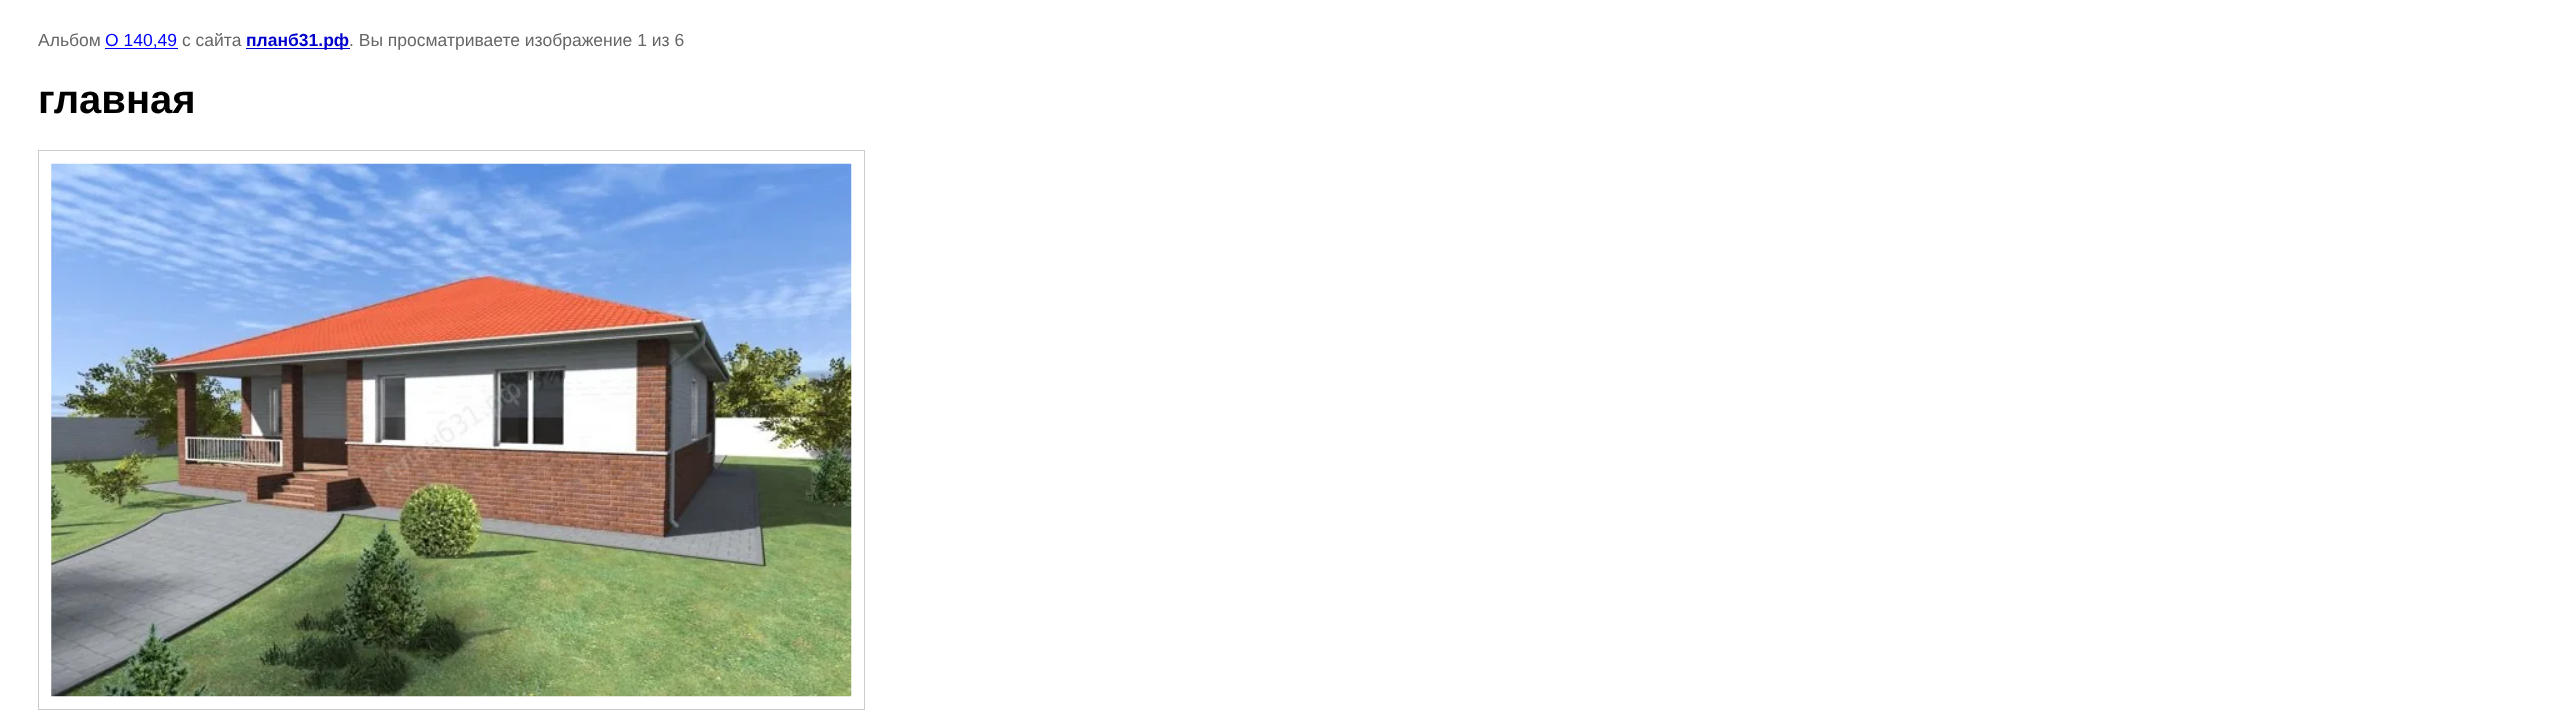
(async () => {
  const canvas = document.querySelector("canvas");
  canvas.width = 2572;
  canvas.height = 715;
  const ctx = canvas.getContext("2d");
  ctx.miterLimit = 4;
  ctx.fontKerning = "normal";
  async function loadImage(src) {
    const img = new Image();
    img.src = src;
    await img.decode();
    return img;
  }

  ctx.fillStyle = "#ffffff";
  ctx.fillRect(0, 0, 2572, 715);
  ctx.fillStyle = "#0000ff";
  ctx.fillRect(105, 48, 73, 1);
  ctx.fillStyle = "#0000cc";
  ctx.fillRect(246, 48, 104, 1);
  ctx.strokeStyle = "#cccccc";
  ctx.strokeRect(38.5, 150.5, 826, 559);
  ctx.drawImage(await loadImage("img/1.png"), 51, 163, 801, 534);
  ctx.font = "17.5px Liberation Sans";
  ctx.fillStyle = "#666666";
  ctx.fillText("Альбом", 38, 46);
  ctx.fillStyle = "#0000ff";
  ctx.fillText("О 140,49", 105, 46);
  ctx.fillStyle = "#666666";
  ctx.fillText("с сайта", 182, 46);
  ctx.font = "bold 17.5px Liberation Sans";
  ctx.fillStyle = "#0000cc";
  ctx.fillText("планб31.рф", 246, 46);
  ctx.font = "17.5px Liberation Sans";
  ctx.fillStyle = "#666666";
  ctx.fillText(". Вы просматриваете изображение 1 из 6", 349, 46);
  ctx.font = "bold 40px Liberation Sans";
  ctx.fillStyle = "#000000";
  ctx.fillText("главная", 38, 113);
})();
